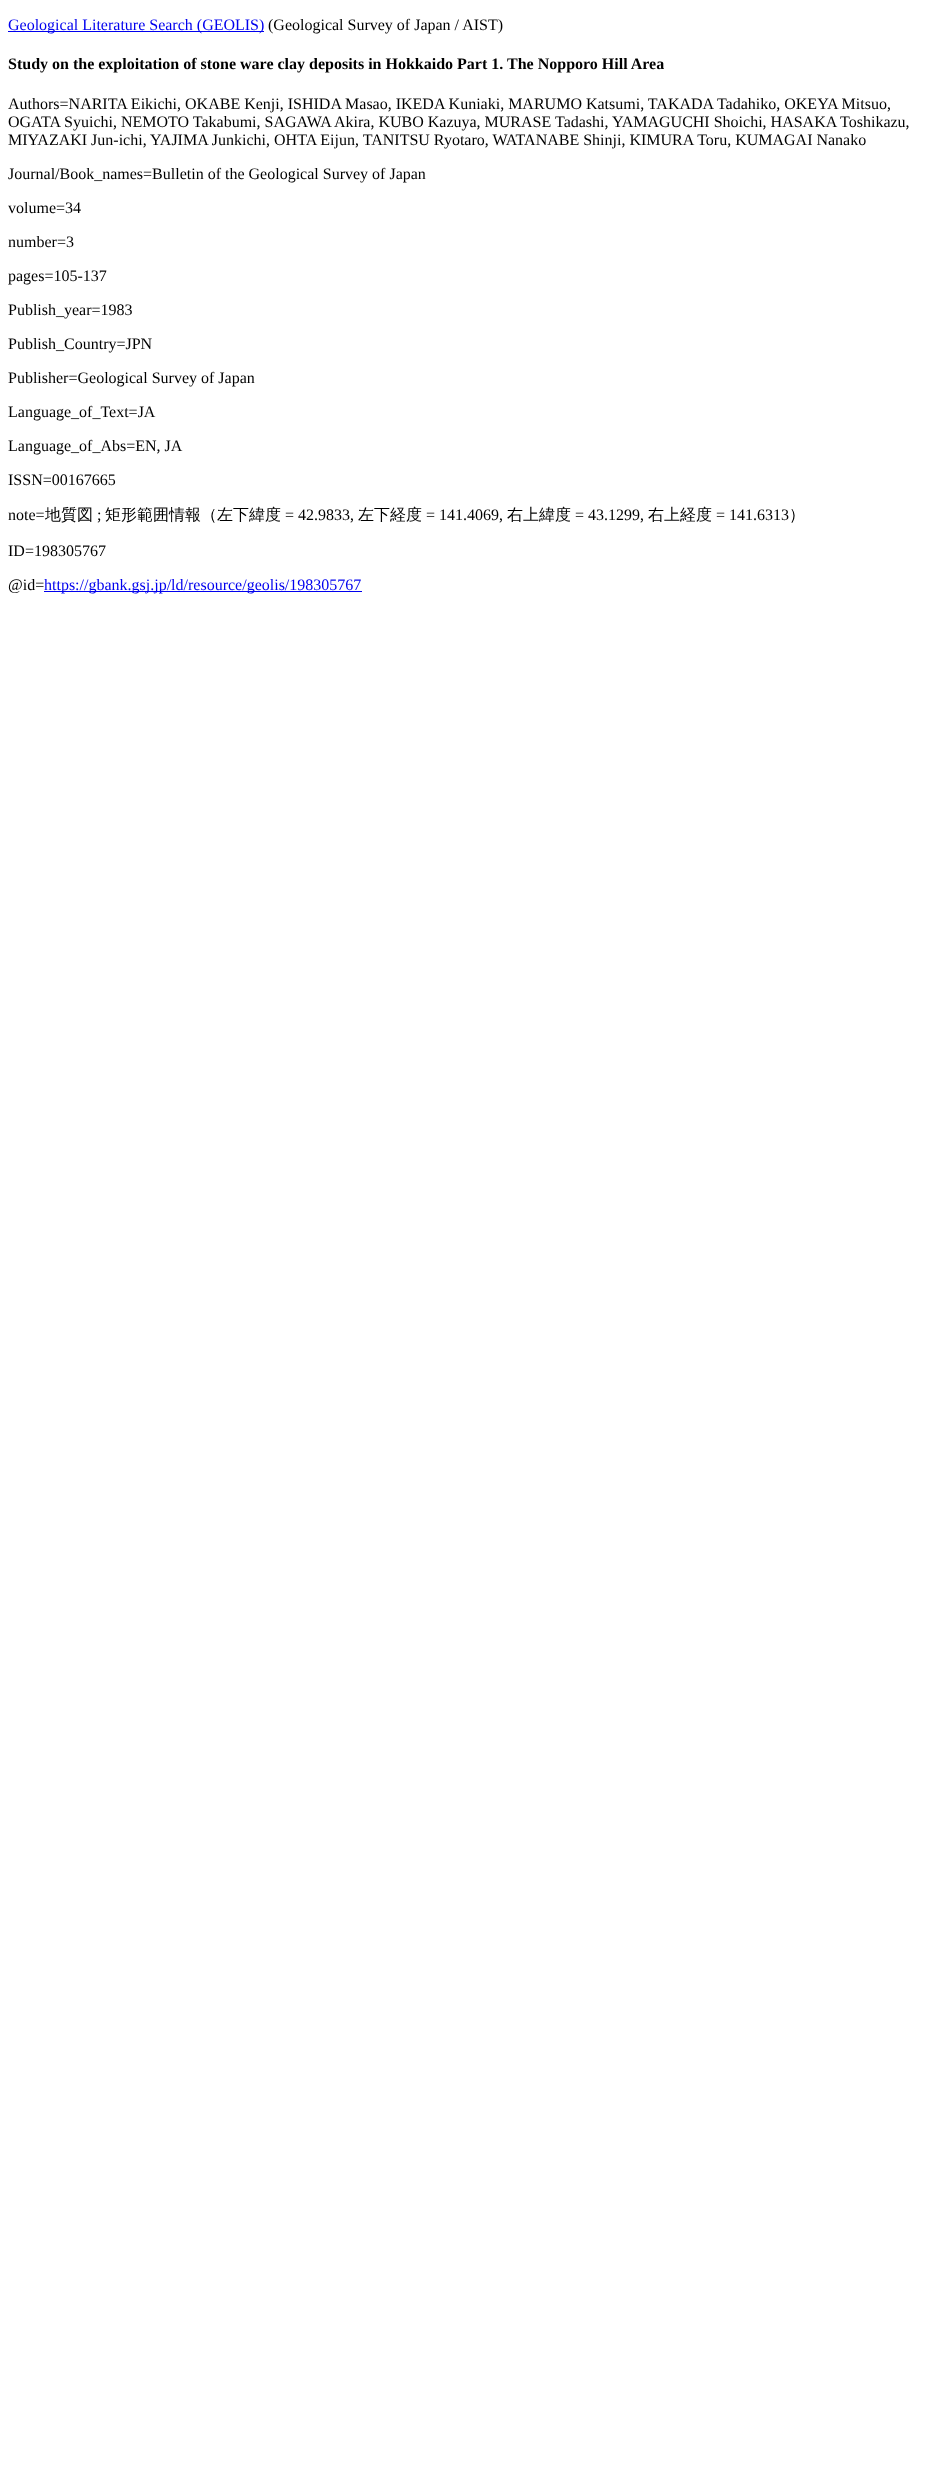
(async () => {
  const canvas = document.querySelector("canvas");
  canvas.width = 951;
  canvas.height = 2466;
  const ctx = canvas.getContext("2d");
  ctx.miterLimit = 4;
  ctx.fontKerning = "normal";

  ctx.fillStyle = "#ffffff";
  ctx.fillRect(0, 0, 951, 2466);
  ctx.fillStyle = "#0000ee";
  ctx.fillRect(8, 31, 256, 1);
  ctx.fillRect(44, 591, 318, 1);
  ctx.font = "16px Liberation Serif";
  ctx.fillText("Geological Literature Search (GEOLIS)", 8, 30);
  ctx.fillStyle = "#000000";
  ctx.fillText("(Geological Survey of Japan / AIST)", 268, 30);
  ctx.font = "bold 16px Liberation Serif";
  ctx.fillText("Study on the exploitation of stone ware clay deposits in Hokkaido Part 1. The Nopporo Hill Area", 8, 69);
  ctx.font = "16px Liberation Serif";
  for (const [text, x, y] of [
    ["Authors=NARITA Eikichi, OKABE Kenji, ISHIDA Masao, IKEDA Kuniaki, MARUMO Katsumi, TAKADA Tadahiko, OKEYA Mitsuo,", 8, 109],
    ["OGATA Syuichi, NEMOTO Takabumi, SAGAWA Akira, KUBO Kazuya, MURASE Tadashi, YAMAGUCHI Shoichi, HASAKA Toshikazu,", 8, 127],
    ["MIYAZAKI Jun-ichi, YAJIMA Junkichi, OHTA Eijun, TANITSU Ryotaro, WATANABE Shinji, KIMURA Toru, KUMAGAI Nanako", 8, 145],
    ["Journal/Book_names=Bulletin of the Geological Survey of Japan", 8, 179],
    ["volume=34", 8, 213],
    ["number=3", 8, 247],
    ["pages=105-137", 8, 281],
    ["Publish_year=1983", 8, 315],
    ["Publish_Country=JPN", 8, 349],
    ["Publisher=Geological Survey of Japan", 8, 383],
    ["Language_of_Text=JA", 8, 417],
    ["Language_of_Abs=EN, JA", 8, 451],
    ["ISSN=00167665", 8, 485],
    ["note=", 8, 520],
  ]) {
    ctx.fillText(text, x, y);
  }
  ctx.font = "500 16px WenQuanYi Zen Hei";
  ctx.fillText("地質図", 45, 520);
  ctx.font = "16px Liberation Serif";
  ctx.fillText(";", 97, 520);
  ctx.font = "500 16px WenQuanYi Zen Hei";
  ctx.fillText("矩形範囲情報（左下緯度", 105, 520);
  ctx.font = "16px Liberation Serif";
  ctx.fillText("= 42.9833,", 285, 520);
  ctx.font = "500 16px WenQuanYi Zen Hei";
  ctx.fillText("左下経度", 358, 520);
  ctx.font = "16px Liberation Serif";
  ctx.fillText("= 141.4069,", 426, 520);
  ctx.font = "500 16px WenQuanYi Zen Hei";
  ctx.fillText("右上緯度", 507, 520);
  ctx.font = "16px Liberation Serif";
  ctx.fillText("= 43.1299,", 575, 520);
  ctx.font = "500 16px WenQuanYi Zen Hei";
  ctx.fillText("右上経度", 648, 520);
  ctx.font = "16px Liberation Serif";
  ctx.fillText("= 141.6313", 716, 520);
  ctx.font = "500 16px WenQuanYi Zen Hei";
  ctx.fillText("）", 789, 520);
  ctx.font = "16px Liberation Serif";
  ctx.fillText("ID=198305767", 8, 556);
  ctx.fillText("@id=", 8, 590);
  ctx.fillStyle = "#0000ee";
  ctx.fillText("https://gbank.gsj.jp/ld/resource/geolis/198305767", 44, 590);
})();
